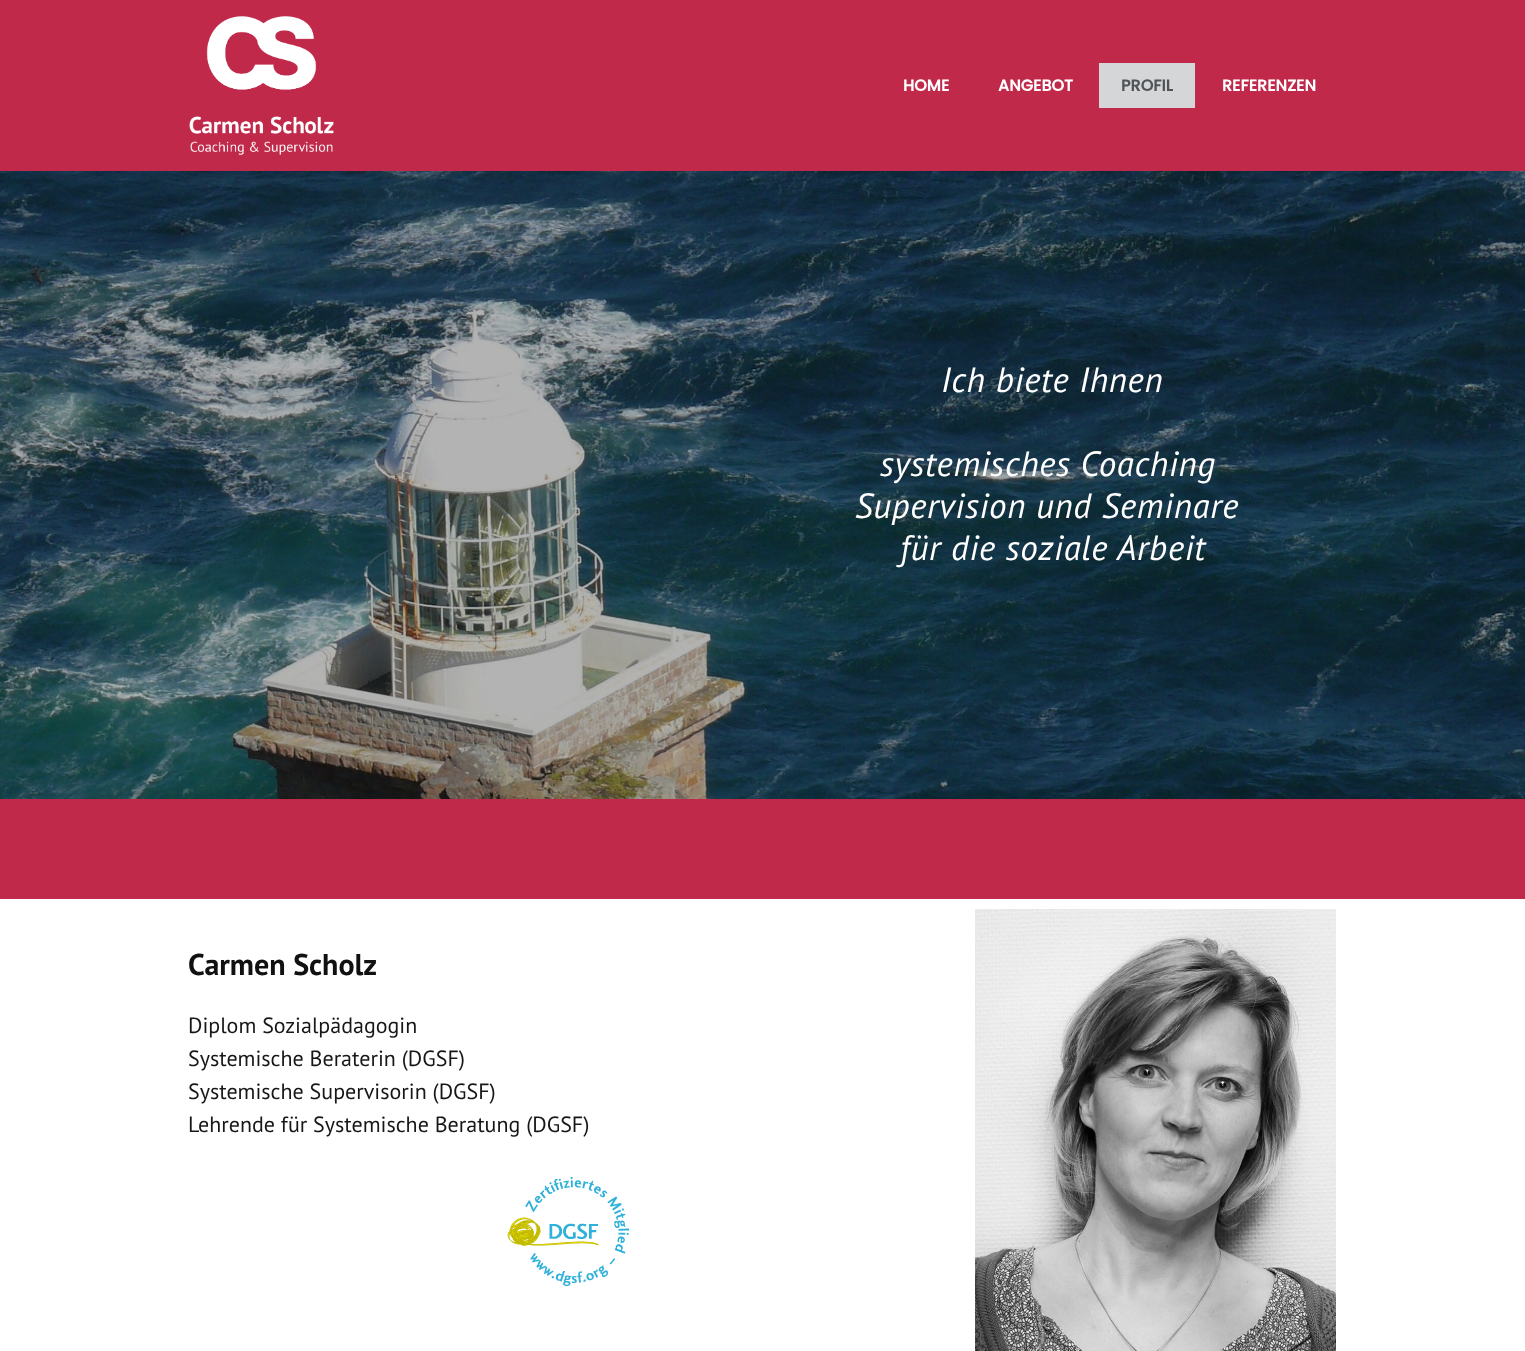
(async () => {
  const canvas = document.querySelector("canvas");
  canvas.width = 1525;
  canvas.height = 1351;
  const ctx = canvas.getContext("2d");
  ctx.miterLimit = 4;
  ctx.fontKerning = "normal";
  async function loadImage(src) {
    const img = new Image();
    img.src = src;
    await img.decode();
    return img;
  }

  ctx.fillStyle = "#c0294a";
  ctx.fillRect(0, 0, 1525, 1351);
  ctx.drawImage(await loadImage("img/1.png"), 189, 16, 145, 139);
  ctx.fillStyle = "#d4d6d7";
  ctx.fillRect(1099, 63, 96, 45);
  ctx.drawImage(await loadImage("img/2.png"), 0, 171, 1525, 628);
  ctx.fillStyle = "#ffffff";
  ctx.fillRect(0, 899, 1525, 452);
  ctx.drawImage(await loadImage("img/3.png"), 507, 1177, 123, 109);
  ctx.drawImage(await loadImage("img/4.png"), 975, 909, 361, 442);
  ctx.font = "bold 16px Poppins";
  ctx.fillText("HOME", 903, 91);
  ctx.fillText("ANGEBOT", 998, 91);
  ctx.fillStyle = "#505459";
  ctx.fillText("PROFIL", 1121, 91);
  ctx.fillStyle = "#ffffff";
  ctx.fillText("REFERENZEN", 1222, 91);
  ctx.letterSpacing = "0.6px";
  ctx.font = "italic 35px PT Sans";
  for (const [text, x, y] of [
    ["Ich biete Ihnen", 941, 392],
    ["systemisches Coaching", 880, 476],
    ["Supervision und Seminare", 855, 518],
    ["für die soziale Arbeit", 900, 560],
  ]) {
    ctx.fillText(text, x, y);
  }
  ctx.letterSpacing = "0px";
  ctx.font = "bold 30px PT Sans";
  ctx.fillStyle = "#111111";
  ctx.fillText("Carmen Scholz", 188, 975);
  ctx.font = "22px PT Sans";
  ctx.fillStyle = "#191616";
  for (const [text, x, y] of [
    ["Diplom Sozialpädagogin", 188, 1033],
    ["Systemische Beraterin (DGSF)", 188, 1066],
    ["Systemische Supervisorin (DGSF)", 188, 1099],
    ["Lehrende für Systemische Beratung (DGSF)", 188, 1132],
  ]) {
    ctx.fillText(text, x, y);
  }
})();
